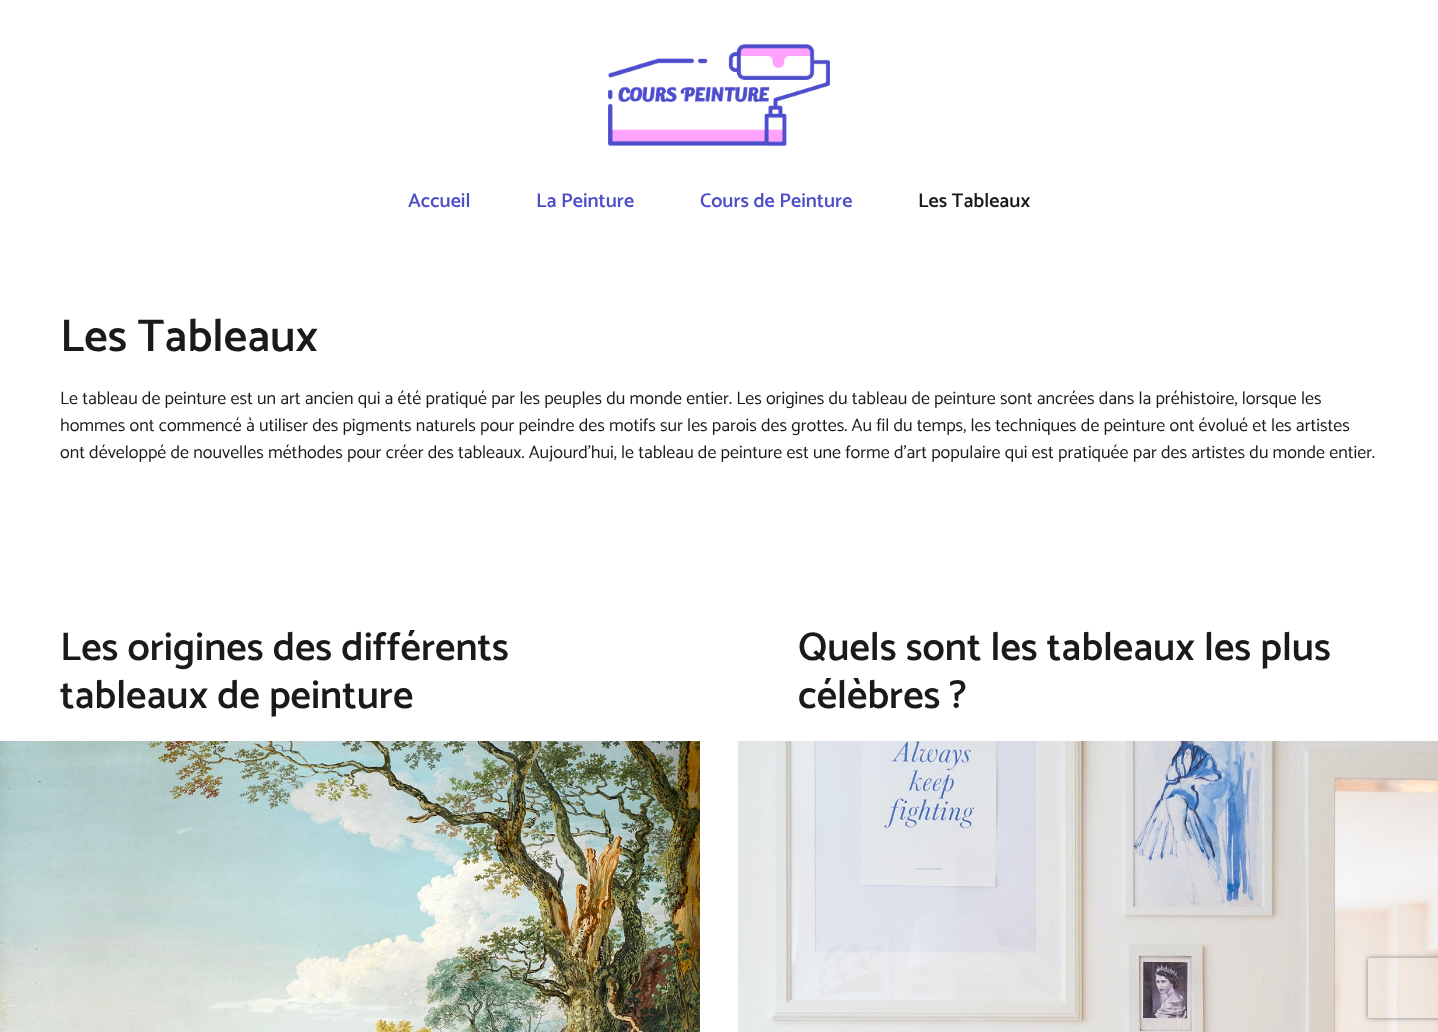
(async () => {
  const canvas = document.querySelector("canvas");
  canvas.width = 1438;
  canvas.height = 1032;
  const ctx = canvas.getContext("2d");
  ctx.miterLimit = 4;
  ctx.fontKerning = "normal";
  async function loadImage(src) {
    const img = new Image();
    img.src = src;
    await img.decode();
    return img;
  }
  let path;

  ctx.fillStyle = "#ffffff";
  ctx.fillRect(0, 0, 1438, 1032);
  ctx.drawImage(await loadImage("img/1.png"), 608, 44, 222, 102);
  ctx.drawImage(await loadImage("img/2.png"), 0, 741, 700, 291);
  ctx.drawImage(await loadImage("img/3.png"), 738, 741, 700, 291);
  ctx.save();
  path = new Path2D("M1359 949H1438V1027H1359ZM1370 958H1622C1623 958 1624 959 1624 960V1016C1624 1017 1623 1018 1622 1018H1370C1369 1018 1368 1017 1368 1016V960C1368 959 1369 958 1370 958Z");
  ctx.clip(path, "evenodd");
  ctx.fillStyle = "#808080";
  ctx.filter = "blur(2.5px)";
  ctx.beginPath();
  ctx.roundRect(1368, 958, 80, 60, 2);
  ctx.fill();
  ctx.filter = "none";
  ctx.restore();
  ctx.font = "600 20px Catamaran";
  ctx.fillStyle = "#4e4ec6";
  for (const [text, x, y] of [
    ["Accueil", 408, 207],
    ["La Peinture", 536, 207],
    ["Cours de Peinture", 700, 207],
  ]) {
    ctx.fillText(text, x, y);
  }
  ctx.fillStyle = "#1a1a1a";
  ctx.fillText("Les Tableaux", 918, 207);
  ctx.font = "600 46px Catamaran";
  ctx.fillText("Les Tableaux", 60, 351);
  ctx.font = "18px Catamaran";
  for (const [text, x, y] of [
    ["Le tableau de peinture est un art ancien qui a été pratiqué par les peuples du monde entier. Les origines du tableau de peinture sont ancrées dans la préhistoire, lorsque les", 60, 404],
    ["hommes ont commencé à utiliser des pigments naturels pour peindre des motifs sur les parois des grottes. Au fil du temps, les techniques de peinture ont évolué et les artistes", 60, 431],
    ["ont développé de nouvelles méthodes pour créer des tableaux. Aujourd’hui, le tableau de peinture est une forme d’art populaire qui est pratiquée par des artistes du monde entier.", 60, 458],
  ]) {
    ctx.fillText(text, x, y);
  }
  ctx.font = "600 40px Catamaran";
  for (const [text, x, y] of [
    ["Les origines des différents", 60, 660],
    ["tableaux de peinture", 60, 708],
    ["Quels sont les tableaux les plus", 798, 660],
    ["célèbres ?", 798, 708],
  ]) {
    ctx.fillText(text, x, y);
  }
})();
